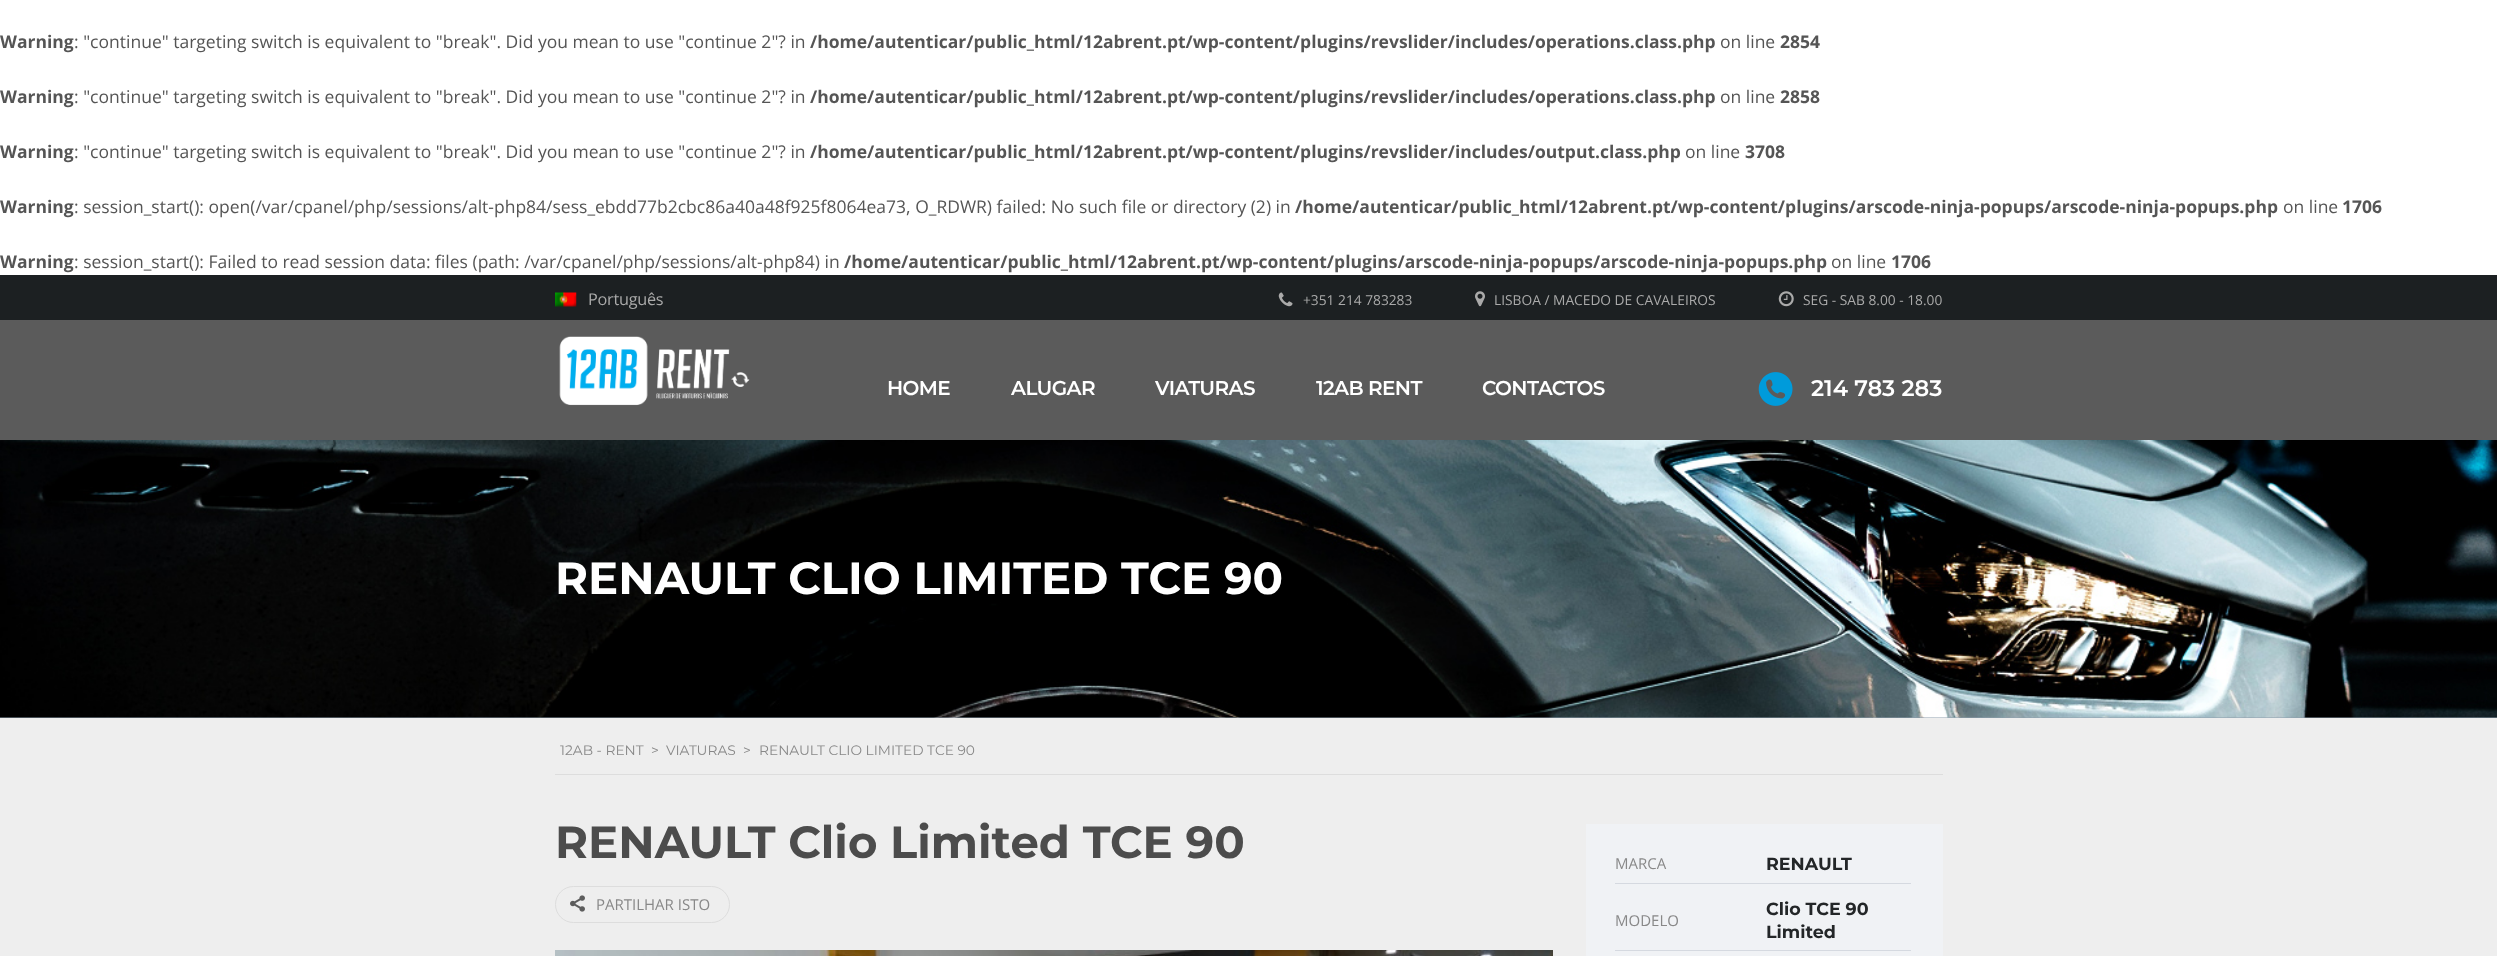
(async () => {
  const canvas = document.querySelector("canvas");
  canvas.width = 2497;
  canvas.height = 956;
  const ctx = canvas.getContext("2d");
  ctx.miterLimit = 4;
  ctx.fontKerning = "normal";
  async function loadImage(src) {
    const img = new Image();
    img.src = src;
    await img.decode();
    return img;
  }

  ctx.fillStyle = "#ffffff";
  ctx.fillRect(0, 0, 2497, 956);
  ctx.fillStyle = "#eeeeee";
  ctx.fillRect(0, 718, 2497, 238);
  ctx.fillStyle = "#1c2022";
  ctx.fillRect(0, 275, 2497, 45);
  ctx.drawImage(await loadImage("img/1.png"), 555, 292, 22, 15);
  ctx.drawImage(await loadImage("img/2.png"), 1278, 292, 15, 15);
  ctx.drawImage(await loadImage("img/3.png"), 1475, 291, 10, 16);
  ctx.drawImage(await loadImage("img/4.png"), 1778, 291, 16, 16);
  ctx.fillStyle = "#5b5b5b";
  ctx.fillRect(0, 320, 2497, 120);
  ctx.drawImage(await loadImage("img/5.png"), 559, 336, 191, 70);
  ctx.drawImage(await loadImage("img/6.png"), 1758, 372, 35, 34);
  ctx.fillStyle = "#8f9fad";
  ctx.fillRect(0, 717, 2497, 1);
  ctx.drawImage(await loadImage("img/7.png"), 0, 440, 2497, 278);
  ctx.fillStyle = "#dddddd";
  ctx.fillRect(555, 774, 1388, 1);
  ctx.beginPath();
  ctx.roundRect(555.5, 886.5, 174, 36, 18);
  ctx.strokeStyle = "#dddddd";
  ctx.stroke();
  ctx.drawImage(await loadImage("img/8.png"), 570, 895, 15, 17);
  ctx.drawImage(await loadImage("img/9.png"), 555, 950, 998, 6);
  for (const [x, y, w, h, color] of [
    [1586, 824, 357, 132, "#f0f2f5"],
    [1615, 883, 296, 1, "#d5d9e0"],
    [1615, 950, 296, 1, "#d5d9e0"],
  ]) {
    ctx.fillStyle = color;
    ctx.fillRect(x, y, w, h);
  }
  ctx.font = "bold 17.5px Open Sans";
  ctx.fillStyle = "#555555";
  ctx.fillText("Warning", 0, 48);
  ctx.font = "17.5px Open Sans";
  ctx.fillText(": \"continue\" targeting switch is equivalent to \"break\". Did you mean to use \"continue 2\"? in", 74, 48);
  ctx.font = "bold 17.5px Open Sans";
  ctx.fillText("/home/autenticar/public_html/12abrent.pt/wp-content/plugins/revslider/includes/operations.class.php", 810, 48);
  ctx.font = "17.5px Open Sans";
  ctx.fillText("on line", 1720, 48);
  ctx.font = "bold 17.5px Open Sans";
  ctx.fillText("2854", 1780, 48);
  ctx.fillText("Warning", 0, 103);
  ctx.font = "17.5px Open Sans";
  ctx.fillText(": \"continue\" targeting switch is equivalent to \"break\". Did you mean to use \"continue 2\"? in", 74, 103);
  ctx.font = "bold 17.5px Open Sans";
  ctx.fillText("/home/autenticar/public_html/12abrent.pt/wp-content/plugins/revslider/includes/operations.class.php", 810, 103);
  ctx.font = "17.5px Open Sans";
  ctx.fillText("on line", 1720, 103);
  ctx.font = "bold 17.5px Open Sans";
  ctx.fillText("2858", 1780, 103);
  ctx.fillText("Warning", 0, 158);
  ctx.font = "17.5px Open Sans";
  ctx.fillText(": \"continue\" targeting switch is equivalent to \"break\". Did you mean to use \"continue 2\"? in", 74, 158);
  ctx.font = "bold 17.5px Open Sans";
  ctx.fillText("/home/autenticar/public_html/12abrent.pt/wp-content/plugins/revslider/includes/output.class.php", 810, 158);
  ctx.font = "17.5px Open Sans";
  ctx.fillText("on line", 1685, 158);
  ctx.font = "bold 17.5px Open Sans";
  ctx.fillText("3708", 1745, 158);
  ctx.fillText("Warning", 0, 213);
  ctx.font = "17.5px Open Sans";
  ctx.fillText(": session_start(): open(/var/cpanel/php/sessions/alt-php84/sess_ebdd77b2cbc86a40a48f925f8064ea73, O_RDWR) failed: No such file or directory (2) in", 74, 213);
  ctx.font = "bold 17.5px Open Sans";
  ctx.fillText("/home/autenticar/public_html/12abrent.pt/wp-content/plugins/arscode-ninja-popups/arscode-ninja-popups.php", 1295, 213);
  ctx.font = "17.5px Open Sans";
  ctx.fillText("on line", 2283, 213);
  ctx.font = "bold 17.5px Open Sans";
  ctx.fillText("1706", 2342, 213);
  ctx.fillText("Warning", 0, 268);
  ctx.font = "17.5px Open Sans";
  ctx.fillText(": session_start(): Failed to read session data: files (path: /var/cpanel/php/sessions/alt-php84) in", 74, 268);
  ctx.font = "bold 17.5px Open Sans";
  ctx.fillText("/home/autenticar/public_html/12abrent.pt/wp-content/plugins/arscode-ninja-popups/arscode-ninja-popups.php", 844, 268);
  ctx.font = "17.5px Open Sans";
  ctx.fillText("on line", 1831, 268);
  ctx.font = "bold 17.5px Open Sans";
  ctx.fillText("1706", 1891, 268);
  ctx.letterSpacing = "-0.25px";
  ctx.font = "16.25px Open Sans";
  ctx.fillStyle = "#aaaaaa";
  ctx.fillText("Português", 588, 305);
  ctx.letterSpacing = "0px";
  ctx.font = "13.75px Open Sans";
  for (const [text, x, y] of [
    ["+351 214 783283", 1303, 305],
    ["LISBOA / MACEDO DE CAVALEIROS", 1494, 305],
    ["SEG - SAB 8.00 - 18.00", 1803, 305],
  ]) {
    ctx.fillText(text, x, y);
  }
  ctx.letterSpacing = "-0.6px";
  ctx.font = "600 20px Montserrat";
  ctx.fillStyle = "#ffffff";
  for (const [text, x, y] of [
    ["HOME", 887, 395],
    ["ALUGAR", 1011, 395],
    ["VIATURAS", 1155, 395],
    ["12AB RENT", 1316, 395],
    ["CONTACTOS", 1482, 395],
  ]) {
    ctx.fillText(text, x, y);
  }
  ctx.letterSpacing = "0px";
  ctx.font = "600 22.5px Montserrat";
  ctx.fillText("214 783 283", 1811, 396);
  ctx.font = "bold 45px Montserrat";
  ctx.fillText("RENAULT CLIO LIMITED TCE 90", 555, 594);
  ctx.font = "13.75px Montserrat";
  ctx.fillStyle = "#888888";
  for (const [text, x, y] of [
    ["12AB - RENT", 560, 755],
    [">", 651, 755],
    ["VIATURAS", 666, 755],
    [">", 743, 755],
    ["RENAULT CLIO LIMITED TCE 90", 759, 755],
  ]) {
    ctx.fillText(text, x, y);
  }
  ctx.font = "bold 45px Montserrat";
  ctx.fillStyle = "#4c4c4c";
  ctx.fillText("RENAULT Clio Limited TCE 90", 555, 858);
  ctx.font = "15px Open Sans";
  ctx.fillStyle = "#888888";
  ctx.fillText("PARTILHAR ISTO", 596, 910);
  ctx.fillText("MARCA", 1615, 869);
  ctx.font = "bold 17.5px Montserrat";
  ctx.fillStyle = "#232628";
  ctx.fillText("RENAULT", 1766, 870);
  ctx.font = "15px Open Sans";
  ctx.fillStyle = "#888888";
  ctx.fillText("MODELO", 1615, 926);
  ctx.font = "bold 17.5px Montserrat";
  ctx.fillStyle = "#232628";
  ctx.fillText("Clio TCE 90", 1766, 915);
  ctx.fillText("Limited", 1766, 938);
})();
